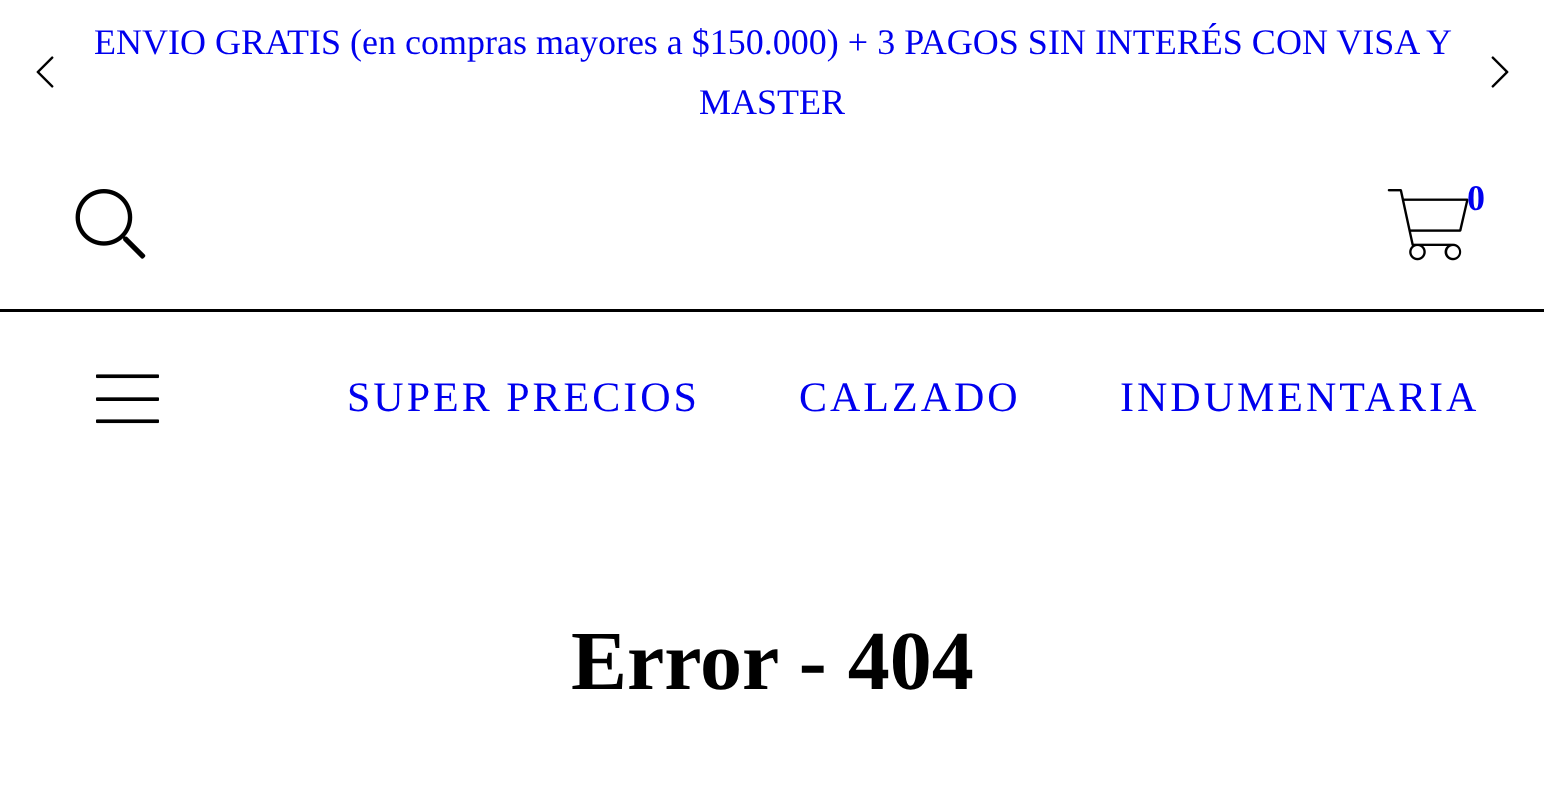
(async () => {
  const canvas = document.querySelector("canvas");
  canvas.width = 1544;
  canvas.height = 796;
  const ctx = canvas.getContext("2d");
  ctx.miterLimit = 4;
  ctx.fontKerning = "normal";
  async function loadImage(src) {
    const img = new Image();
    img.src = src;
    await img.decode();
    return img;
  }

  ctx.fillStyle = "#ffffff";
  ctx.fillRect(0, 0, 1544, 796);
  ctx.drawImage(await loadImage("img/1.png"), 36, 56, 18, 32);
  ctx.drawImage(await loadImage("img/2.png"), 1491, 56, 18, 32);
  ctx.drawImage(await loadImage("img/3.png"), 75, 189, 71, 70);
  ctx.drawImage(await loadImage("img/4.png"), 1387, 189, 82, 72);
  ctx.fillStyle = "#000000";
  ctx.fillRect(0, 309, 1544, 3);
  ctx.drawImage(await loadImage("img/5.png"), 96, 374, 63, 50);
  ctx.font = "36px Liberation Serif";
  ctx.fillStyle = "#0000ee";
  ctx.fillText("ENVIO GRATIS (en compras mayores a $150.000) + 3 PAGOS SIN INTERÉS CON VISA Y", 94, 54);
  ctx.fillText("MASTER", 699, 114);
  ctx.font = "bold 36px Liberation Serif";
  ctx.fillText("0", 1467, 210);
  ctx.letterSpacing = "3px";
  ctx.font = "42px Liberation Serif";
  for (const [text, x, y] of [
    ["SUPER PRECIOS", 347, 411],
    ["CALZADO", 799, 411],
    ["INDUMENTARIA", 1120, 411],
  ]) {
    ctx.fillText(text, x, y);
  }
  ctx.letterSpacing = "0px";
  ctx.font = "bold 84px Liberation Serif";
  ctx.fillStyle = "#000000";
  ctx.fillText("Error - 404", 571, 689);
})();
